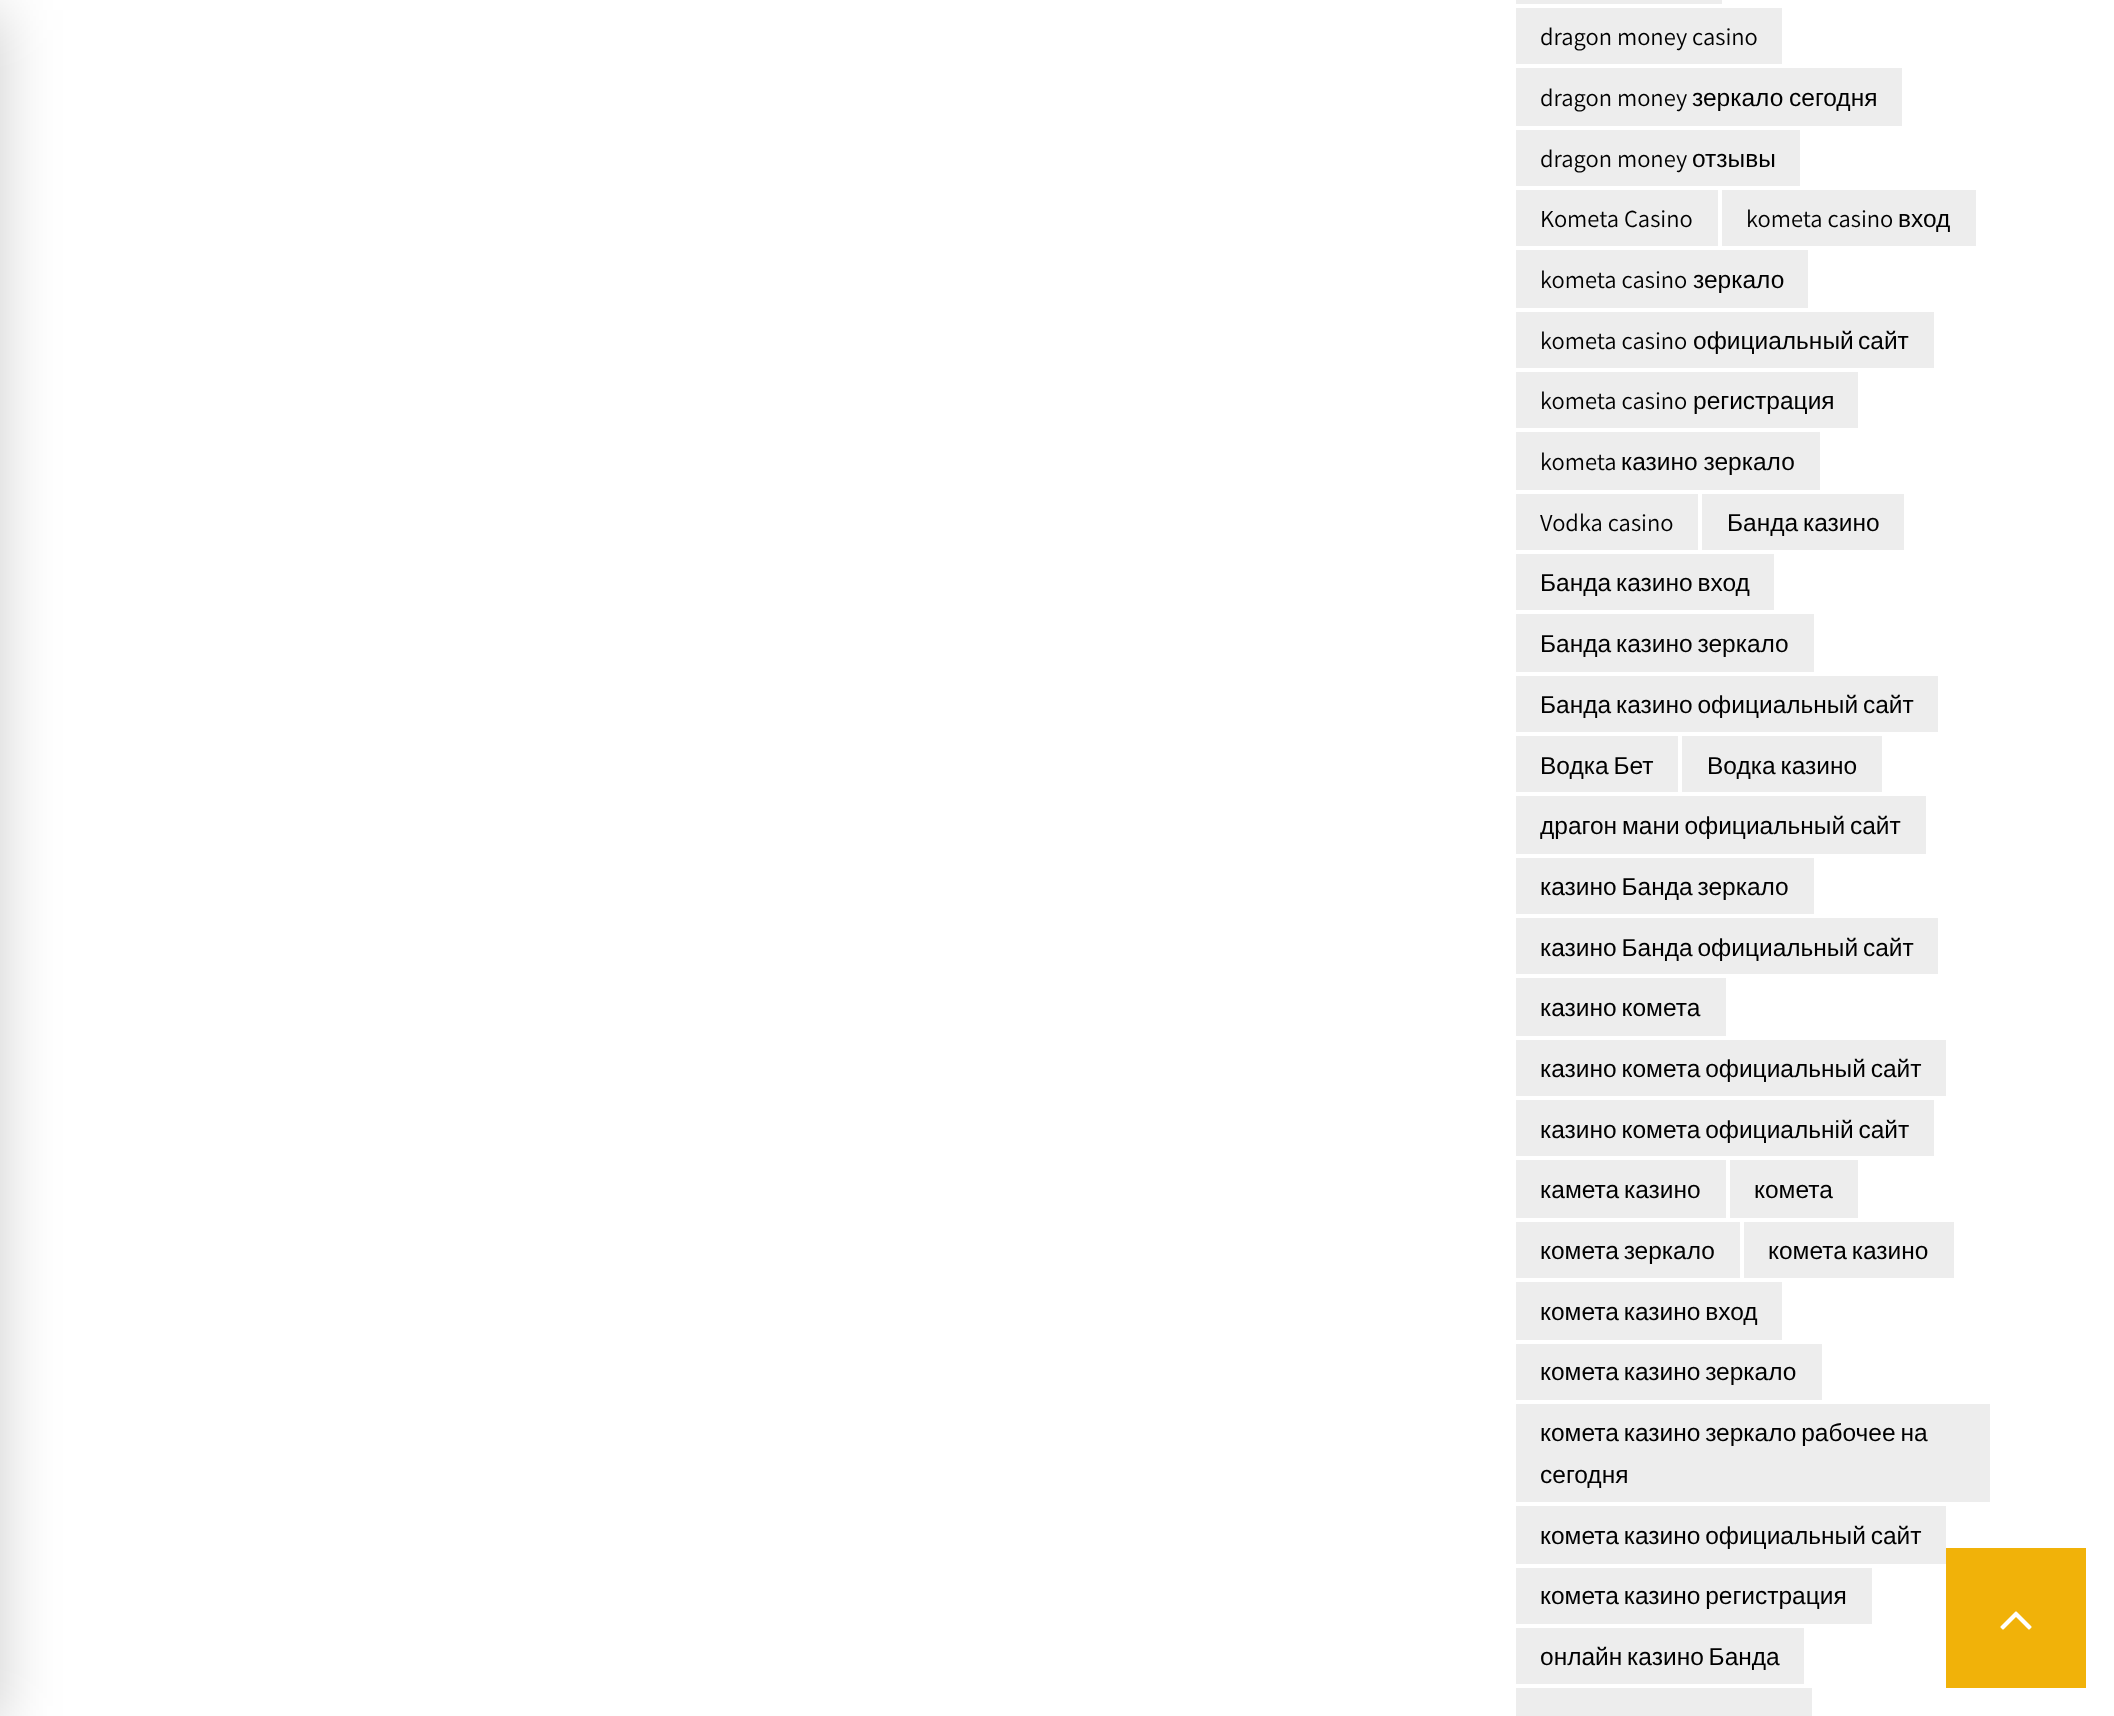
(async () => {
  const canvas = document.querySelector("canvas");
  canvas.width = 2114;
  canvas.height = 1716;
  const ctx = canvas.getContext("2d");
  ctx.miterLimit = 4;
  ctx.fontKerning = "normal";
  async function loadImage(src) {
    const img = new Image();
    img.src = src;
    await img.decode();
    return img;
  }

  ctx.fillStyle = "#ffffff";
  ctx.fillRect(0, 0, 2114, 1716);
  ctx.fillStyle = "rgba(0, 0, 0, 0.2)";
  ctx.filter = "blur(30px)";
  ctx.beginPath();
  ctx.rect(-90, 10, 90, 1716);
  ctx.fill();
  ctx.filter = "none";
  for (const [x, y, w, h, color] of [
    [1516, 0, 206, 4, "#ededed"],
    [1516, 8, 266, 56, "#ededed"],
    [1516, 68, 386, 58, "#ededed"],
    [1516, 130, 284, 56, "#ededed"],
    [1516, 190, 202, 56, "#ededed"],
    [1722, 190, 254, 56, "#ededed"],
    [1516, 250, 292, 58, "#ededed"],
    [1516, 312, 418, 56, "#ededed"],
    [1516, 372, 342, 56, "#ededed"],
    [1516, 432, 304, 58, "#ededed"],
    [1516, 494, 182, 56, "#ededed"],
    [1702, 494, 202, 56, "#ededed"],
    [1516, 554, 258, 56, "#ededed"],
    [1516, 614, 298, 58, "#ededed"],
    [1516, 676, 422, 56, "#ededed"],
    [1516, 736, 162, 56, "#ededed"],
    [1682, 736, 200, 56, "#ededed"],
    [1516, 796, 410, 58, "#ededed"],
    [1516, 858, 298, 56, "#ededed"],
    [1516, 918, 422, 56, "#ededed"],
    [1516, 978, 210, 58, "#ededed"],
    [1516, 1040, 430, 56, "#ededed"],
    [1516, 1100, 418, 56, "#ededed"],
    [1516, 1160, 210, 58, "#ededed"],
    [1730, 1160, 128, 58, "#ededed"],
    [1516, 1222, 224, 56, "#ededed"],
    [1744, 1222, 210, 56, "#ededed"],
    [1516, 1282, 266, 58, "#ededed"],
    [1516, 1344, 306, 56, "#ededed"],
    [1516, 1404, 474, 98, "#ededed"],
    [1516, 1506, 430, 58, "#ededed"],
    [1516, 1568, 356, 56, "#ededed"],
    [1516, 1628, 288, 56, "#ededed"],
    [1516, 1688, 296, 28, "#ededed"],
    [1946, 1548, 140, 140, "#f1b209"],
  ]) {
    ctx.fillStyle = color;
    ctx.fillRect(x, y, w, h);
  }
  ctx.drawImage(await loadImage("img/1.png"), 2000, 1611, 32, 19);
  ctx.font = "24.5px Assistant";
  ctx.fillStyle = "#000000";
  ctx.fillText("dragon money casino", 1540, 45);
  ctx.fillText("dragon money", 1540, 106);
  ctx.font = "24.5px Liberation Sans";
  ctx.fillText("зеркало", 1692, 106);
  ctx.fillText("сегодня", 1789, 106);
  ctx.font = "24.5px Assistant";
  ctx.fillText("dragon money", 1540, 167);
  ctx.font = "24.5px Liberation Sans";
  ctx.fillText("отзывы", 1692, 167);
  ctx.font = "24.5px Assistant";
  ctx.fillText("Kometa Casino", 1540, 227);
  ctx.fillText("kometa casino", 1746, 227);
  ctx.font = "24.5px Liberation Sans";
  ctx.fillText("вход", 1898, 227);
  ctx.font = "24.5px Assistant";
  ctx.fillText("kometa casino", 1540, 288);
  ctx.font = "24.5px Liberation Sans";
  ctx.fillText("зеркало", 1693, 288);
  ctx.font = "24.5px Assistant";
  ctx.fillText("kometa casino", 1540, 349);
  ctx.font = "24.5px Liberation Sans";
  ctx.fillText("официальный", 1693, 349);
  ctx.fillText("сайт", 1858, 349);
  ctx.font = "24.5px Assistant";
  ctx.fillText("kometa casino", 1540, 409);
  ctx.font = "24.5px Liberation Sans";
  ctx.fillText("регистрация", 1693, 409);
  ctx.font = "24.5px Assistant";
  ctx.fillText("kometa", 1540, 470);
  ctx.wordSpacing = "-1px";
  ctx.font = "24.5px Liberation Sans";
  ctx.fillText("казино зеркало", 1621, 470);
  ctx.wordSpacing = "0px";
  ctx.font = "24.5px Assistant";
  ctx.fillText("Vodka casino", 1540, 531);
  ctx.wordSpacing = "-2px";
  ctx.font = "24.5px Liberation Sans";
  for (const [text, x, y] of [
    ["Банда казино", 1727, 531],
    ["Банда казино вход", 1540, 591],
    ["Банда казино зеркало", 1540, 652],
    ["Банда казино официальный сайт", 1540, 713],
    ["Водка Бет", 1540, 774],
    ["Водка казино", 1707, 774],
    ["драгон мани официальный сайт", 1540, 834],
    ["казино Банда зеркало", 1540, 895],
    ["казино Банда официальный сайт", 1540, 956],
    ["казино комета", 1540, 1016],
    ["казино комета официальный сайт", 1540, 1077],
    ["казино комета официальній сайт", 1540, 1138],
    ["камета казино", 1540, 1198],
  ]) {
    ctx.fillText(text, x, y);
  }
  ctx.wordSpacing = "0px";
  ctx.fillText("комета", 1754, 1198);
  ctx.wordSpacing = "-2px";
  for (const [text, x, y] of [
    ["комета зеркало", 1540, 1259],
    ["комета казино", 1768, 1259],
    ["комета казино вход", 1540, 1320],
    ["комета казино зеркало", 1540, 1380],
    ["комета казино зеркало рабочее на", 1540, 1441],
  ]) {
    ctx.fillText(text, x, y);
  }
  ctx.wordSpacing = "0px";
  ctx.fillText("сегодня", 1540, 1483);
  ctx.wordSpacing = "-2px";
  for (const [text, x, y] of [
    ["комета казино официальный сайт", 1540, 1544],
    ["комета казино регистрация", 1540, 1604],
    ["онлайн казино Банда", 1540, 1665],
  ]) {
    ctx.fillText(text, x, y);
  }
})();
